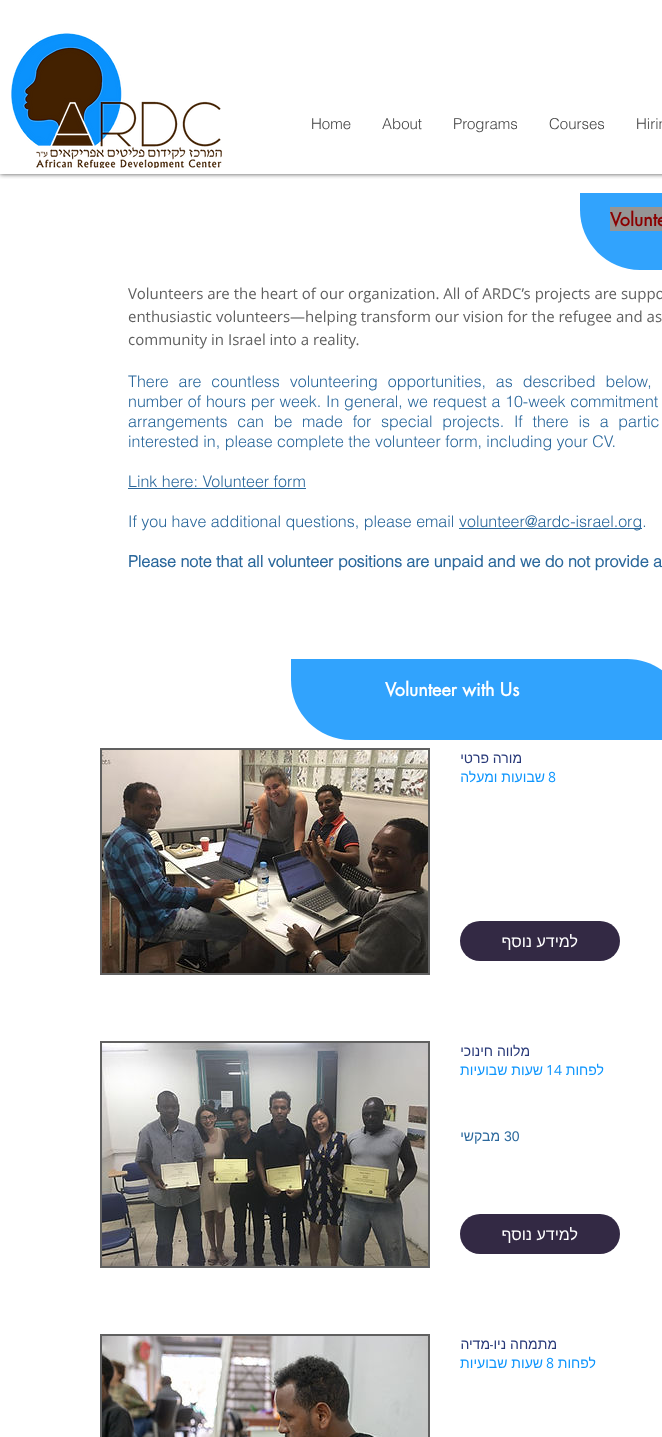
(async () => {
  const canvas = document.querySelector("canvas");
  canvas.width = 662;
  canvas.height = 1437;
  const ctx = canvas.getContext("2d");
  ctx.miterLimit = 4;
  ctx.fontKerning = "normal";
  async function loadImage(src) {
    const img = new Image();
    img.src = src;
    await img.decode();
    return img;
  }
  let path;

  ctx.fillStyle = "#ffffff";
  ctx.fillRect(0, 0, 662, 1437);
  ctx.save();
  ctx.beginPath();
  ctx.rect(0, 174, 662, 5);
  ctx.clip();
  ctx.fillStyle = "rgba(0, 0, 0, 0.7)";
  ctx.filter = "blur(2.5px)";
  ctx.beginPath();
  ctx.rect(0, 0, 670, 174);
  ctx.fill();
  ctx.filter = "none";
  ctx.restore();
  ctx.drawImage(await loadImage("img/1.png"), 11, 33, 211, 135);
  ctx.fillStyle = "#31a3fd";
  path = new Path2D("M580 193H662C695 193 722 220 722 253V270H640C607 270 580 243 580 210Z");
  ctx.fill(path);
  for (const [x, y, w, h, color] of [
    [610, 207, 52, 24, "#959595"],
    [128, 488, 178, 1, "#2b689c"],
    [459, 528, 183, 1, "#2b689c"],
  ]) {
    ctx.fillStyle = color;
    ctx.fillRect(x, y, w, h);
  }
  ctx.fillStyle = "#31a3fd";
  path = new Path2D("M291 659H627C660 659 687 686 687 719V740H351C318 740 291 713 291 680Z");
  ctx.fill(path);
  ctx.fillStyle = "#606060";
  ctx.fillRect(100, 748, 330, 227);
  ctx.drawImage(await loadImage("img/2.png"), 102, 750, 326, 223);
  ctx.fillStyle = "#332944";
  ctx.beginPath();
  ctx.roundRect(460, 921, 160, 40, 20);
  ctx.fill();
  ctx.fillStyle = "#606060";
  ctx.fillRect(100, 1041, 330, 227);
  ctx.drawImage(await loadImage("img/3.png"), 102, 1043, 326, 223);
  ctx.fillStyle = "#332944";
  ctx.beginPath();
  ctx.roundRect(460, 1214, 160, 40, 20);
  ctx.fill();
  ctx.fillStyle = "#606060";
  ctx.fillRect(100, 1334, 330, 103);
  ctx.drawImage(await loadImage("img/4.png"), 102, 1336, 326, 101);
  ctx.font = "300 15px helvetica";
  ctx.fillStyle = "#444444";
  for (const [text, x, y] of [
    ["Home", 311, 129],
    ["About", 382, 129],
    ["Programs", 453, 129],
    ["Courses", 549, 129],
    ["Hirin", 636, 129],
  ]) {
    ctx.fillText(text, x, y);
  }
  ctx.font = "bold 18px futura";
  ctx.fillStyle = "#8b0000";
  ctx.fillText("Volunte", 610, 226);
  ctx.font = "15px Open Sans";
  ctx.fillStyle = "#5f5f5f";
  for (const [text, x, y] of [
    ["Volunteers are the heart of our organization. All of ARDC’s projects are suppo", 128, 299],
    ["enthusiastic volunteers―helping transform our vision for the refugee and as", 128, 322],
    ["community in Israel into a reality.", 128, 345],
  ]) {
    ctx.fillText(text, x, y);
  }
  ctx.wordSpacing = "5.5px";
  ctx.font = "300 16px helvetica";
  ctx.fillStyle = "#2b689c";
  ctx.fillText("There are countless volunteering opportunities, as described below,", 128, 387);
  ctx.wordSpacing = "0.3px";
  ctx.fillText("number of hours per week. In general, we request a 10-week commitment", 128, 407);
  ctx.wordSpacing = "5.25px";
  ctx.fillText("arrangements can be made for special projects. If there is a partic", 128, 427);
  ctx.wordSpacing = "0px";
  for (const [text, x, y] of [
    ["interested in, please complete the volunteer form, including your CV.", 128, 447],
    ["Link here: Volunteer form", 128, 487],
    ["If you have additional questions, please email", 128, 527],
    ["volunteer@ardc-israel.org.", 459, 527],
  ]) {
    ctx.fillText(text, x, y);
  }
  ctx.font = "bold 16px helvetica";
  ctx.fillText("Please note that all volunteer positions are unpaid and we do not provide a", 128, 567);
  ctx.font = "bold 18px futura";
  ctx.fillStyle = "#ffffff";
  ctx.fillText("Volunteer with Us", 385, 696);
  ctx.direction = "rtl";
  ctx.font = "14px Liberation Sans";
  ctx.fillStyle = "#273878";
  ctx.fillText("מורה פרטי", 522, 763);
  ctx.fillStyle = "#0d95fd";
  ctx.fillText("שבועות ומעלה", 545, 782);
  ctx.direction = "ltr";
  ctx.font = "14px Open Sans";
  ctx.fillText("8", 548, 782);
  ctx.direction = "rtl";
  ctx.font = "16px Liberation Sans";
  ctx.fillStyle = "#ffffff";
  ctx.fillText("למידע נוסף", 578, 947);
  ctx.font = "14px Liberation Sans";
  ctx.fillStyle = "#273878";
  ctx.fillText("מלווה חינוכי", 530, 1056);
  ctx.fillStyle = "#0d95fd";
  ctx.fillText("שעות שבועיות", 543, 1075);
  ctx.direction = "ltr";
  ctx.font = "14px Open Sans";
  ctx.fillText("14", 546, 1075);
  ctx.direction = "rtl";
  ctx.font = "14px Liberation Sans";
  ctx.fillText("לפחות", 604, 1075);
  ctx.fillStyle = "#2b689c";
  ctx.fillText("מבקשי", 500, 1141);
  ctx.direction = "ltr";
  ctx.fillText("30", 504, 1141);
  ctx.direction = "rtl";
  ctx.font = "16px Liberation Sans";
  ctx.fillStyle = "#ffffff";
  ctx.fillText("למידע נוסף", 578, 1240);
  ctx.font = "14px Liberation Sans";
  ctx.fillStyle = "#273878";
  ctx.fillText("מדיה", 490, 1349);
  ctx.font = "14px futura";
  ctx.fillText("-", 493, 1349);
  ctx.font = "14px Liberation Sans";
  ctx.fillText("מתמחה ניו", 557, 1349);
  ctx.fillStyle = "#0d95fd";
  ctx.fillText("שעות שבועיות", 543, 1368);
  ctx.direction = "ltr";
  ctx.font = "14px Open Sans";
  ctx.fillText("8", 546, 1368);
  ctx.direction = "rtl";
  ctx.font = "14px Liberation Sans";
  ctx.fillText("לפחות", 596, 1368);
})();
